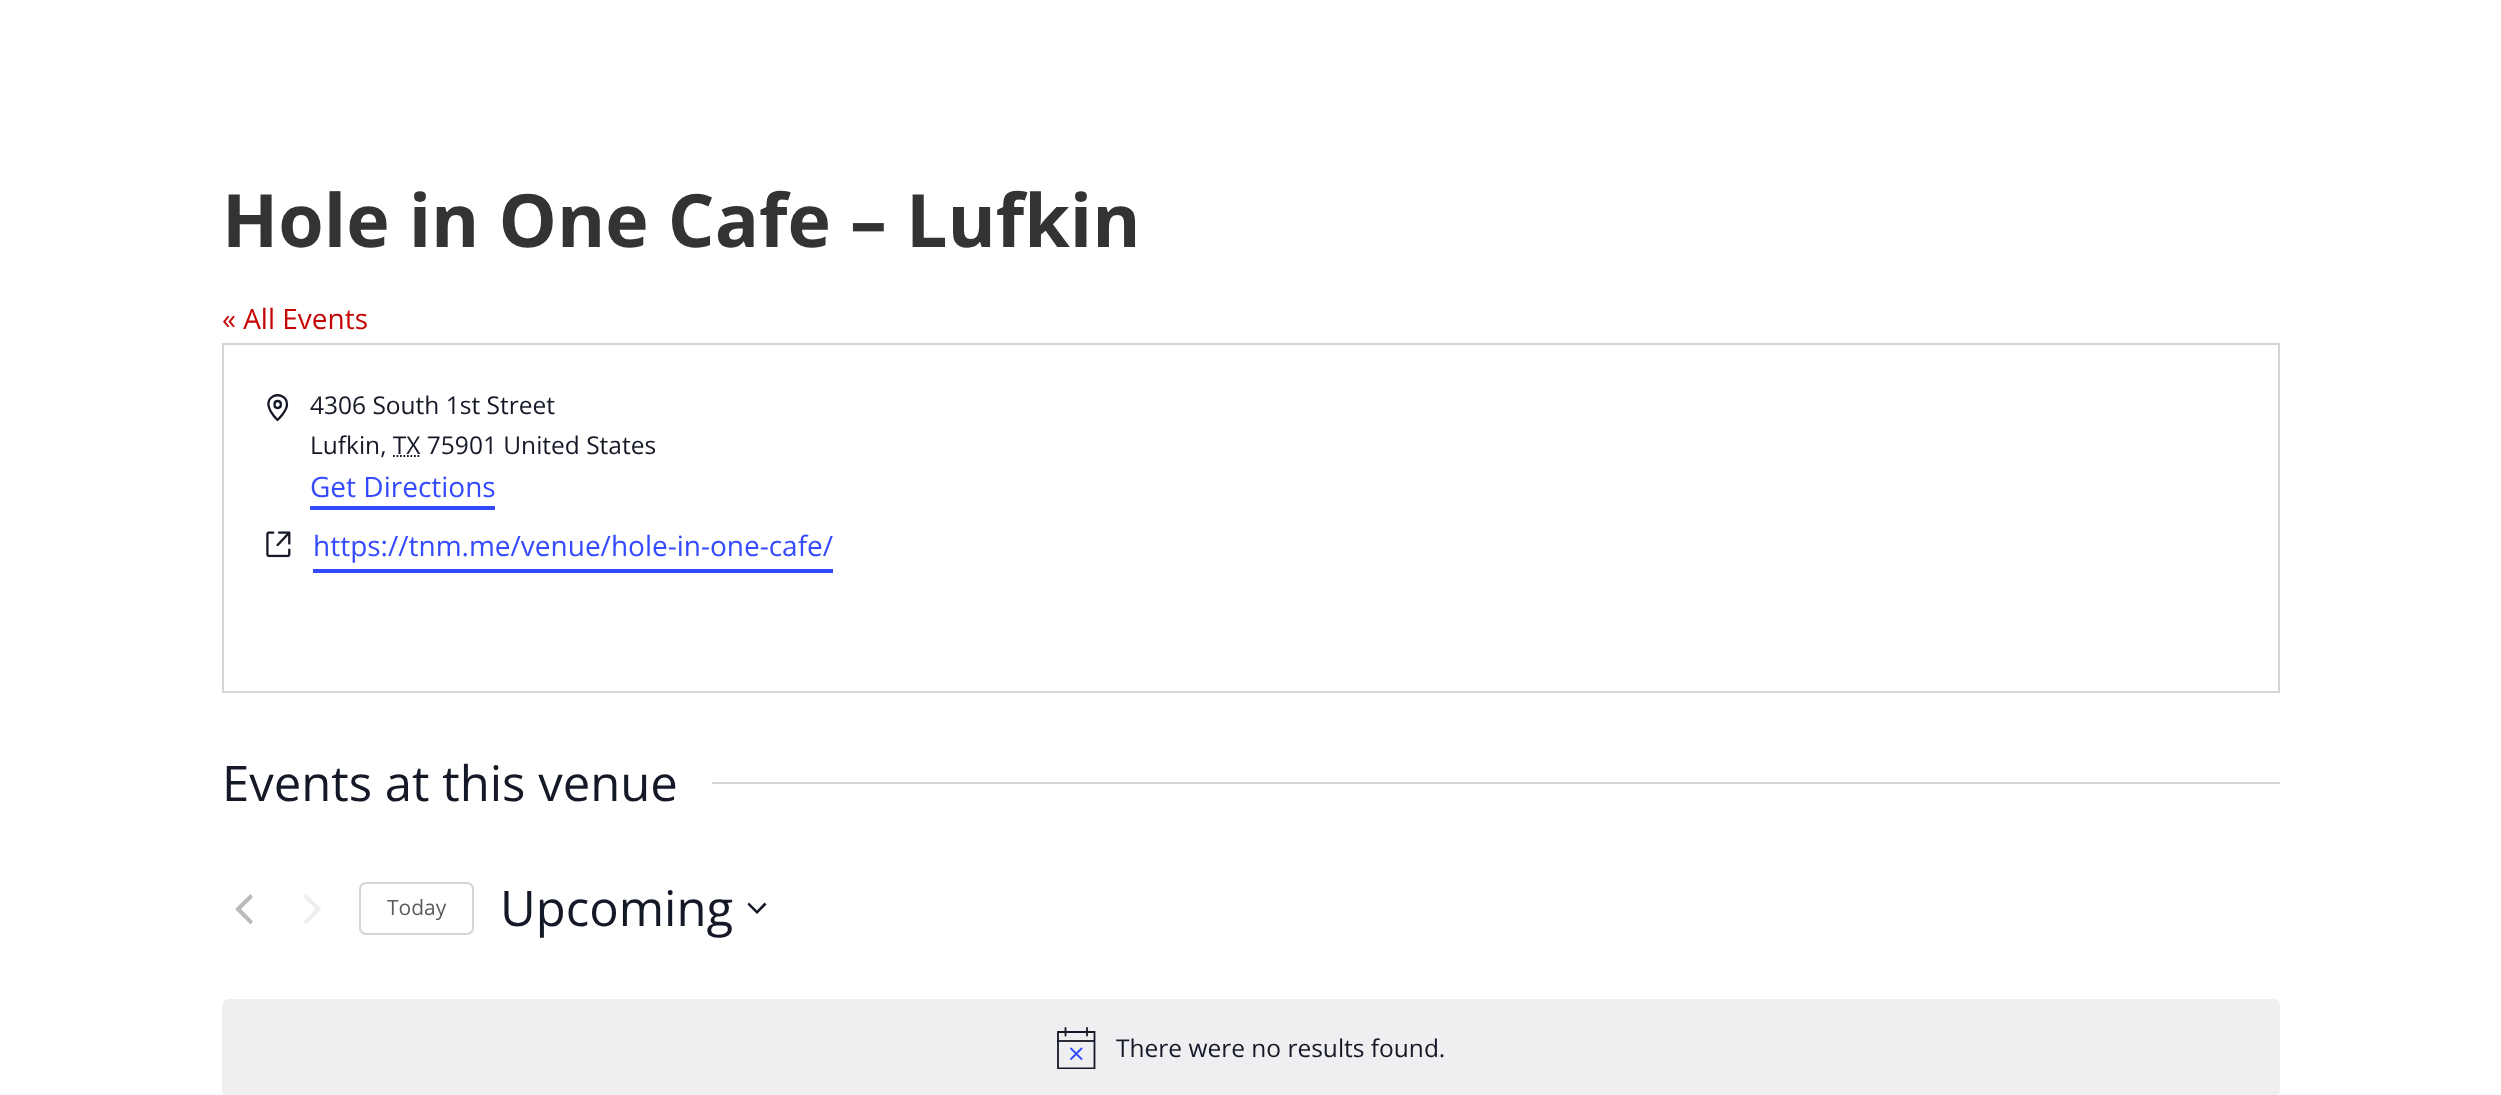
(async () => {
  const canvas = document.querySelector("canvas");
  canvas.width = 2501;
  canvas.height = 1095;
  const ctx = canvas.getContext("2d");
  ctx.miterLimit = 4;
  ctx.fontKerning = "normal";
  async function loadImage(src) {
    const img = new Image();
    img.src = src;
    await img.decode();
    return img;
  }
  let path;

  ctx.fillStyle = "#ffffff";
  ctx.fillRect(0, 0, 2501, 1095);
  ctx.strokeStyle = "#d5d5d5";
  ctx.lineWidth = 2;
  ctx.strokeRect(223, 344, 2056, 348);
  path = new Path2D("M287 404.5C287 411 277.5 420 277.5 420C252.5 395 287 387.5 287 404.5ZM277.5 408C282 408 282 401 277.5 401C273.5 401 273.5 408 277.5 408Z");
  ctx.strokeStyle = "#141827";
  ctx.lineWidth = 2.3;
  ctx.lineCap = "round";
  ctx.lineJoin = "round";
  ctx.stroke(path);
  path = new Path2D("M393 456H421");
  ctx.lineWidth = 1.8;
  ctx.lineCap = "butt";
  ctx.lineJoin = "miter";
  ctx.setLineDash([1.75, 1.75]);
  ctx.stroke(path);
  ctx.fillStyle = "#334aff";
  ctx.fillRect(310, 506, 185, 4);
  ctx.drawImage(await loadImage("img/1.png"), 266, 531, 25, 27);
  ctx.fillRect(313, 569, 520, 4);
  ctx.fillStyle = "#d5d5d5";
  ctx.fillRect(712, 782, 1568, 2);
  ctx.fillStyle = "#bababa";
  path = new Path2D("M253 921.5L250.5 924.5L235 909L250.5 894L253 897L241 909Z");
  ctx.fill(path);
  ctx.fillStyle = "#eeeeee";
  path = new Path2D("M303.5 897L306 894L321.5 909L306 924.5L303.5 921.5L315.5 909Z");
  ctx.fill(path);
  ctx.beginPath();
  ctx.roundRect(360, 883, 113, 51, 6);
  ctx.strokeStyle = "#d5d5d5";
  ctx.lineWidth = 2;
  ctx.setLineDash([]);
  ctx.stroke();
  ctx.fillStyle = "#141827";
  path = new Path2D("M749 902.5L757 910.5L764.5 902.5L766.5 904.5L757 914L747.5 904.5Z");
  ctx.fill(path, "evenodd");
  ctx.fillStyle = "#efeff1";
  ctx.beginPath();
  ctx.roundRect(222, 999, 2058, 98, 7);
  ctx.fill();
  ctx.save();
  ctx.beginPath();
  ctx.rect(1057, 1027, 39, 42);
  ctx.clip();
  path = new Path2D("M1058 1032H1094.5V1068.5H1058Z");
  ctx.strokeStyle = "#141827";
  ctx.lineWidth = 1.8;
  ctx.stroke(path);
  ctx.restore();
  path = new Path2D("M1071 1048.5L1081.5 1059M1081.5 1048.5L1071 1059");
  ctx.strokeStyle = "#334aff";
  ctx.lineWidth = 1.8;
  ctx.lineCap = "round";
  ctx.stroke(path);
  path = new Path2D("M1065.5 1028V1035.5M1087 1028V1035.5");
  ctx.strokeStyle = "#141827";
  ctx.stroke(path);
  ctx.fillStyle = "rgba(20, 24, 39, 0.9)";
  ctx.fillRect(1057, 1040, 38, 2);
  ctx.font = "bold 73.5px Open Sans";
  ctx.fillStyle = "#333333";
  ctx.fillText("Hole in One Cafe – Lufkin", 222, 247);
  ctx.font = "28px Open Sans";
  ctx.fillStyle = "#c60606";
  ctx.fillText("« All Events", 222, 329);
  ctx.font = "24.5px Open Sans";
  ctx.fillStyle = "#141827";
  ctx.fillText("4306 South 1st Street", 310, 414);
  ctx.fillText("Lufkin, TX 75901 United States", 310, 454);
  ctx.font = "28px Open Sans";
  ctx.fillStyle = "#334aff";
  ctx.fillText("Get Directions", 310, 497);
  ctx.fillText("https://tnm.me/venue/hole-in-one-cafe/", 313, 556);
  ctx.font = "49px Open Sans";
  ctx.fillStyle = "#141827";
  ctx.fillText("Events at this venue", 222, 801);
  ctx.font = "21px Open Sans";
  ctx.fillStyle = "#5d5d5d";
  ctx.fillText("Today", 387, 915);
  ctx.font = "49px Open Sans";
  ctx.fillStyle = "#141827";
  ctx.fillText("Upcoming", 500, 926);
  ctx.font = "24.5px Open Sans";
  ctx.fillText("There were no results found.", 1116, 1057);
})();
